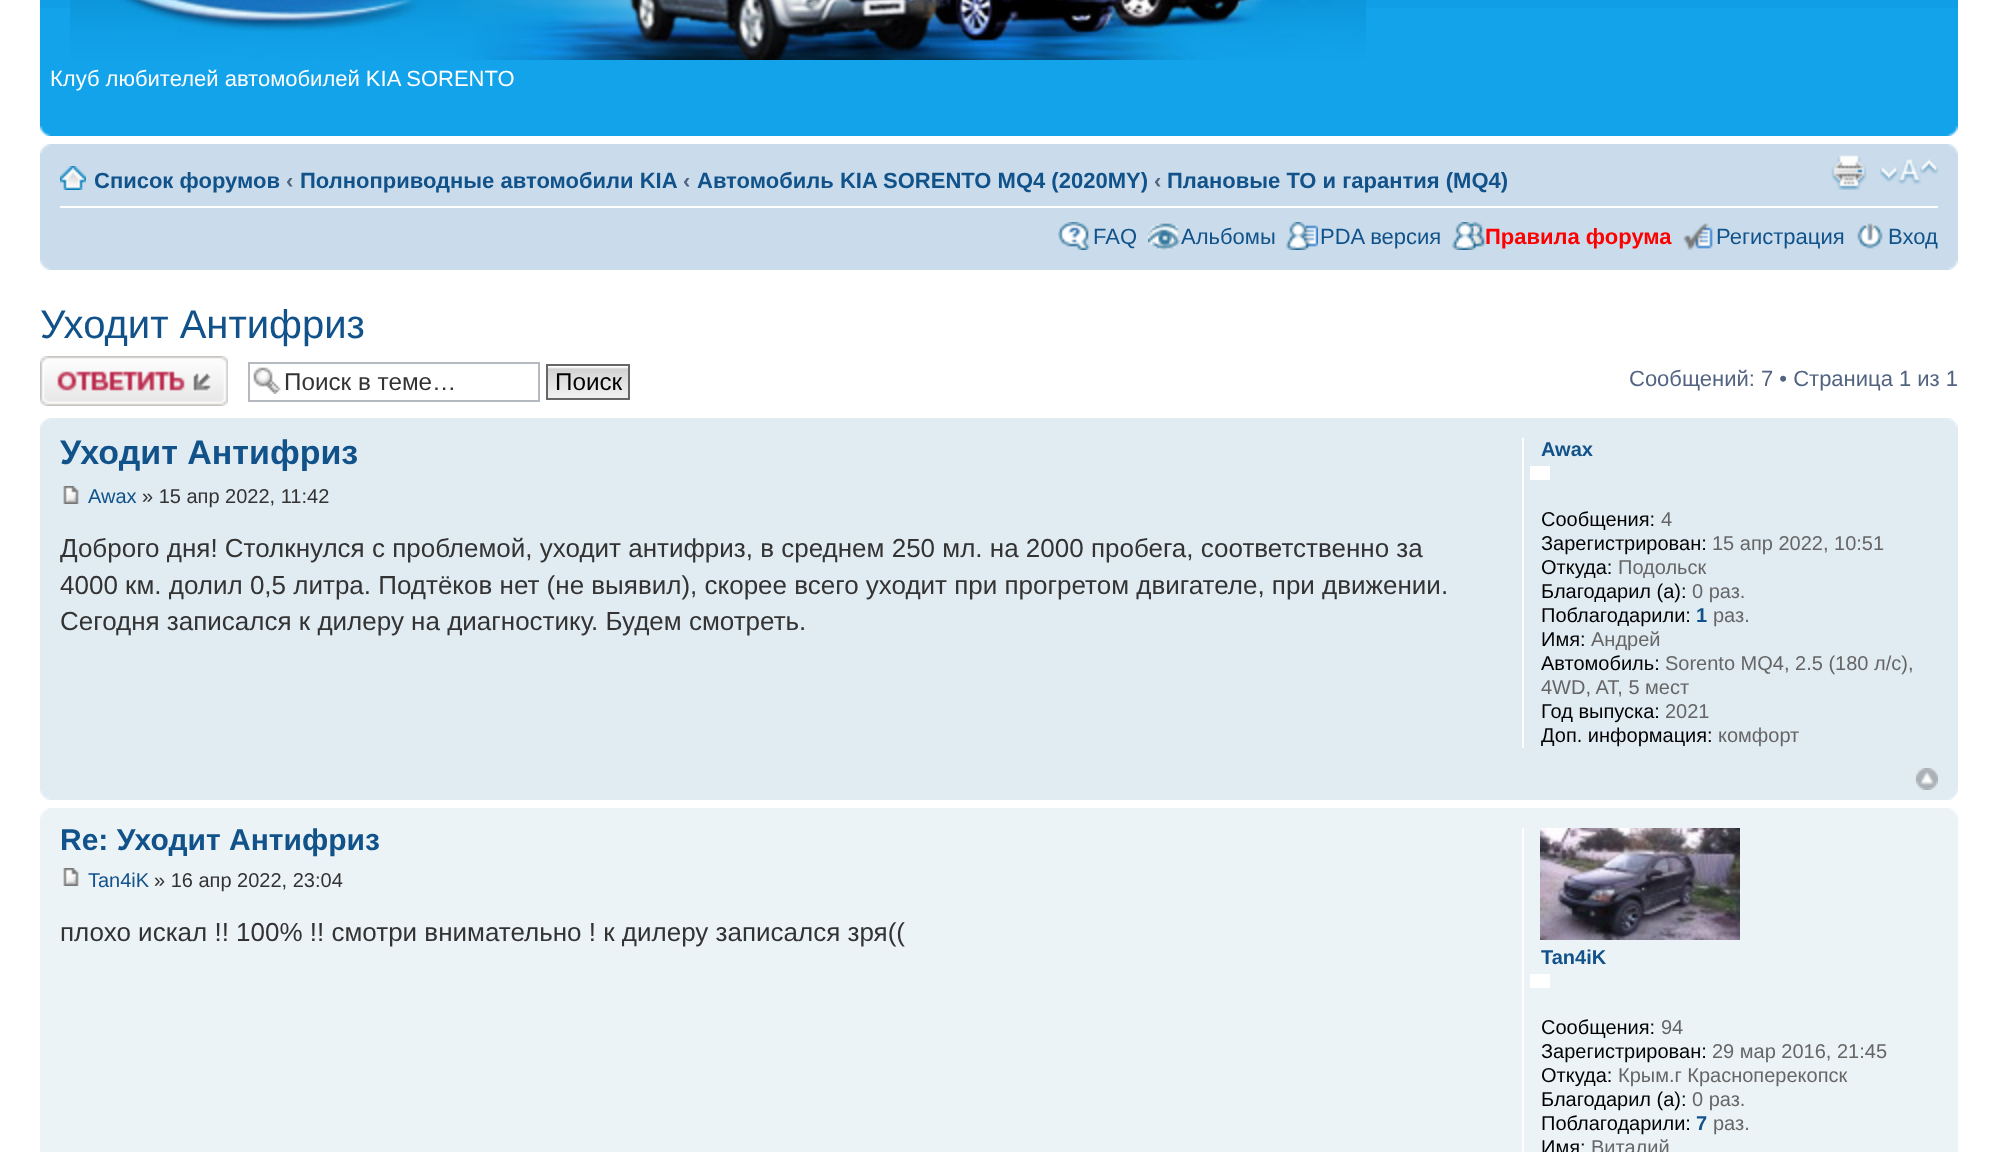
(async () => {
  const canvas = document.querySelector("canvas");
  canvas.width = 1997;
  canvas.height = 1152;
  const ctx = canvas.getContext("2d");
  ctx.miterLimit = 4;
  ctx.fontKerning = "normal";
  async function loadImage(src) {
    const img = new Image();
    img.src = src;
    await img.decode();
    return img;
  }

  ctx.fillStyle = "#ffffff";
  ctx.fillRect(0, 0, 1997, 1152);
  ctx.fillStyle = "#12a3eb";
  ctx.fillRect(40, 8, 1918, 128);
  ctx.fillStyle = "#109fe6";
  ctx.fillRect(40, 0, 1918, 8);
  ctx.drawImage(await loadImage("img/1.png"), 70, 0, 1296, 60);
  ctx.drawImage(await loadImage("img/2.png"), 40, 126, 11, 10);
  ctx.drawImage(await loadImage("img/3.png"), 1947, 126, 11, 10);
  ctx.fillStyle = "#cadceb";
  ctx.fillRect(40, 144, 1918, 126);
  ctx.drawImage(await loadImage("img/4.png"), 40, 144, 11, 10);
  ctx.drawImage(await loadImage("img/5.png"), 1947, 144, 11, 10);
  ctx.fillStyle = "#ffffff";
  ctx.fillRect(60, 206, 1878, 2);
  ctx.drawImage(await loadImage("img/6.png"), 60, 166, 26, 24);
  ctx.drawImage(await loadImage("img/7.png"), 1831, 155, 36, 35);
  ctx.drawImage(await loadImage("img/8.png"), 1880, 159, 58, 26);
  ctx.drawImage(await loadImage("img/9.png"), 1058, 222, 32, 28);
  ctx.drawImage(await loadImage("img/10.png"), 1148, 223, 33, 27);
  ctx.drawImage(await loadImage("img/11.png"), 1286, 222, 32, 28);
  ctx.drawImage(await loadImage("img/12.png"), 1452, 222, 34, 28);
  ctx.drawImage(await loadImage("img/13.png"), 1683, 223, 30, 27);
  ctx.drawImage(await loadImage("img/14.png"), 1857, 223, 26, 26);
  ctx.drawImage(await loadImage("img/15.png"), 40, 260, 10, 10);
  ctx.drawImage(await loadImage("img/16.png"), 1948, 260, 10, 10);
  ctx.drawImage(await loadImage("img/17.png"), 40, 356, 188, 50);
  ctx.drawImage(await loadImage("img/18.png"), 253, 367, 28, 27);
  ctx.strokeStyle = "#b4bac0";
  ctx.lineWidth = 2;
  ctx.strokeRect(249, 363, 290, 38);
  ctx.drawImage(await loadImage("img/19.png"), 548, 366, 80, 32);
  ctx.strokeStyle = "#666666";
  ctx.strokeRect(547, 365, 82, 34);
  ctx.fillStyle = "#e1ebf2";
  ctx.fillRect(40, 418, 1918, 382);
  ctx.drawImage(await loadImage("img/20.png"), 40, 418, 10, 10);
  ctx.drawImage(await loadImage("img/21.png"), 1948, 418, 10, 10);
  ctx.drawImage(await loadImage("img/22.png"), 63, 486, 16, 18);
  ctx.fillStyle = "#ffffff";
  ctx.fillRect(1522, 438, 2, 310);
  ctx.fillRect(1530, 466, 20, 14);
  ctx.drawImage(await loadImage("img/23.png"), 1916, 768, 22, 22);
  ctx.drawImage(await loadImage("img/24.png"), 40, 790, 10, 10);
  ctx.drawImage(await loadImage("img/25.png"), 1948, 790, 10, 10);
  ctx.fillStyle = "#ecf3f7";
  ctx.fillRect(40, 808, 1918, 344);
  ctx.drawImage(await loadImage("img/26.png"), 40, 808, 9, 10);
  ctx.drawImage(await loadImage("img/27.png"), 1949, 808, 9, 10);
  ctx.drawImage(await loadImage("img/28.png"), 63, 868, 16, 18);
  ctx.fillStyle = "#ffffff";
  ctx.fillRect(1522, 828, 2, 324);
  ctx.drawImage(await loadImage("img/29.png"), 1540, 828, 200, 112);
  ctx.fillRect(1530, 974, 20, 14);
  ctx.font = "22px Liberation Sans";
  ctx.fillText("Клуб любителей автомобилей KIA SORENTO", 50, 86);
  ctx.font = "bold 22px Liberation Sans";
  ctx.fillStyle = "#105289";
  ctx.fillText("Список форумов", 94, 188);
  ctx.fillStyle = "#536482";
  ctx.fillText("‹", 286, 188);
  ctx.fillStyle = "#105289";
  ctx.fillText("Полноприводные автомобили KIA", 300, 188);
  ctx.fillStyle = "#536482";
  ctx.fillText("‹", 683, 188);
  ctx.fillStyle = "#105289";
  ctx.fillText("Автомобиль KIA SORENTO MQ4 (2020MY)", 697, 188);
  ctx.fillStyle = "#536482";
  ctx.fillText("‹", 1154, 188);
  ctx.fillStyle = "#105289";
  ctx.fillText("Плановые ТО и гарантия (MQ4)", 1167, 188);
  ctx.font = "22px Liberation Sans";
  for (const [text, x, y] of [
    ["FAQ", 1093, 244],
    ["Альбомы", 1181, 244],
    ["PDA версия", 1320, 244],
  ]) {
    ctx.fillText(text, x, y);
  }
  ctx.font = "bold 22px Liberation Sans";
  ctx.fillStyle = "#ff0000";
  ctx.fillText("Правила форума", 1485, 244);
  ctx.font = "22px Liberation Sans";
  ctx.fillStyle = "#105289";
  ctx.fillText("Регистрация", 1716, 244);
  ctx.fillText("Вход", 1888, 244);
  ctx.font = "40px Liberation Sans";
  ctx.fillText("Уходит Антифриз", 40, 338);
  ctx.font = "24.25px Liberation Sans";
  ctx.fillStyle = "#333333";
  ctx.fillText("Поиск в теме…", 284, 390);
  ctx.fillStyle = "#000000";
  ctx.fillText("Поиск", 555, 390);
  ctx.font = "22px Liberation Sans";
  ctx.fillStyle = "#536482";
  ctx.fillText("Сообщений: 7 • Страница 1 из 1", 1629, 386);
  ctx.font = "bold 34px Liberation Sans";
  ctx.fillStyle = "#105289";
  ctx.fillText("Уходит Антифриз", 60, 464);
  ctx.font = "20px Liberation Sans";
  ctx.fillText("Awax", 88, 503);
  ctx.fillStyle = "#333333";
  ctx.fillText("» 15 апр 2022, 11:42", 142, 503);
  ctx.font = "26px Liberation Sans";
  for (const [text, x, y] of [
    ["Доброго дня! Столкнулся с проблемой, уходит антифриз, в среднем 250 мл. на 2000 пробега, соответственно за", 60, 557],
    ["4000 км. долил 0,5 литра. Подтёков нет (не выявил), скорее всего уходит при прогретом двигателе, при движении.", 60, 594],
    ["Сегодня записался к дилеру на диагностику. Будем смотреть.", 60, 630],
  ]) {
    ctx.fillText(text, x, y);
  }
  ctx.font = "bold 20px Liberation Sans";
  ctx.fillStyle = "#105289";
  ctx.fillText("Awax", 1541, 456);
  ctx.font = "20px Liberation Sans";
  ctx.fillStyle = "#000000";
  ctx.fillText("Сообщения:", 1541, 526);
  ctx.fillStyle = "#666666";
  ctx.fillText("4", 1661, 526);
  ctx.fillStyle = "#000000";
  ctx.fillText("Зарегистрирован:", 1541, 550);
  ctx.fillStyle = "#666666";
  ctx.fillText("15 апр 2022, 10:51", 1712, 550);
  ctx.fillStyle = "#000000";
  ctx.fillText("Откуда:", 1541, 574);
  ctx.fillStyle = "#666666";
  ctx.fillText("Подольск", 1618, 574);
  ctx.fillStyle = "#000000";
  ctx.fillText("Благодарил (а):", 1541, 598);
  ctx.fillStyle = "#666666";
  ctx.fillText("0 раз.", 1692, 598);
  ctx.fillStyle = "#000000";
  ctx.fillText("Поблагодарили:", 1541, 622);
  ctx.font = "bold 20px Liberation Sans";
  ctx.fillStyle = "#105289";
  ctx.fillText("1", 1696, 622);
  ctx.font = "20px Liberation Sans";
  ctx.fillStyle = "#666666";
  ctx.fillText("раз.", 1713, 622);
  ctx.fillStyle = "#000000";
  ctx.fillText("Имя:", 1541, 646);
  ctx.fillStyle = "#666666";
  ctx.fillText("Андрей", 1591, 646);
  ctx.fillStyle = "#000000";
  ctx.fillText("Автомобиль:", 1541, 670);
  ctx.fillStyle = "#666666";
  ctx.fillText("Sorento MQ4, 2.5 (180 л/с),", 1665, 670);
  ctx.fillText("4WD, AT, 5 мест", 1541, 694);
  ctx.fillStyle = "#000000";
  ctx.fillText("Год выпуска:", 1541, 718);
  ctx.fillStyle = "#666666";
  ctx.fillText("2021", 1665, 718);
  ctx.fillStyle = "#000000";
  ctx.fillText("Доп. информация:", 1541, 742);
  ctx.fillStyle = "#666666";
  ctx.fillText("комфорт", 1718, 742);
  ctx.font = "bold 30px Liberation Sans";
  ctx.fillStyle = "#105289";
  ctx.fillText("Re: Уходит Антифриз", 60, 850);
  ctx.font = "20px Liberation Sans";
  ctx.fillText("Tan4iK", 88, 887);
  ctx.fillStyle = "#333333";
  ctx.fillText("» 16 апр 2022, 23:04", 154, 887);
  ctx.font = "26px Liberation Sans";
  ctx.fillText("плохо искал !! 100% !! смотри внимательно ! к дилеру записался зря((", 60, 941);
  ctx.font = "bold 20px Liberation Sans";
  ctx.fillStyle = "#105289";
  ctx.fillText("Tan4iK", 1541, 964);
  ctx.font = "20px Liberation Sans";
  ctx.fillStyle = "#000000";
  ctx.fillText("Сообщения:", 1541, 1034);
  ctx.fillStyle = "#666666";
  ctx.fillText("94", 1661, 1034);
  ctx.fillStyle = "#000000";
  ctx.fillText("Зарегистрирован:", 1541, 1058);
  ctx.fillStyle = "#666666";
  ctx.fillText("29 мар 2016, 21:45", 1712, 1058);
  ctx.fillStyle = "#000000";
  ctx.fillText("Откуда:", 1541, 1082);
  ctx.fillStyle = "#666666";
  ctx.fillText("Крым.г Красноперекопск", 1618, 1082);
  ctx.fillStyle = "#000000";
  ctx.fillText("Благодарил (а):", 1541, 1106);
  ctx.fillStyle = "#666666";
  ctx.fillText("0 раз.", 1692, 1106);
  ctx.fillStyle = "#000000";
  ctx.fillText("Поблагодарили:", 1541, 1130);
  ctx.font = "bold 20px Liberation Sans";
  ctx.fillStyle = "#105289";
  ctx.fillText("7", 1696, 1130);
  ctx.font = "20px Liberation Sans";
  ctx.fillStyle = "#666666";
  ctx.fillText("раз.", 1713, 1130);
  ctx.fillStyle = "#000000";
  ctx.fillText("Имя:", 1541, 1154);
  ctx.fillStyle = "#666666";
  ctx.fillText("Виталий", 1591, 1154);
})();
